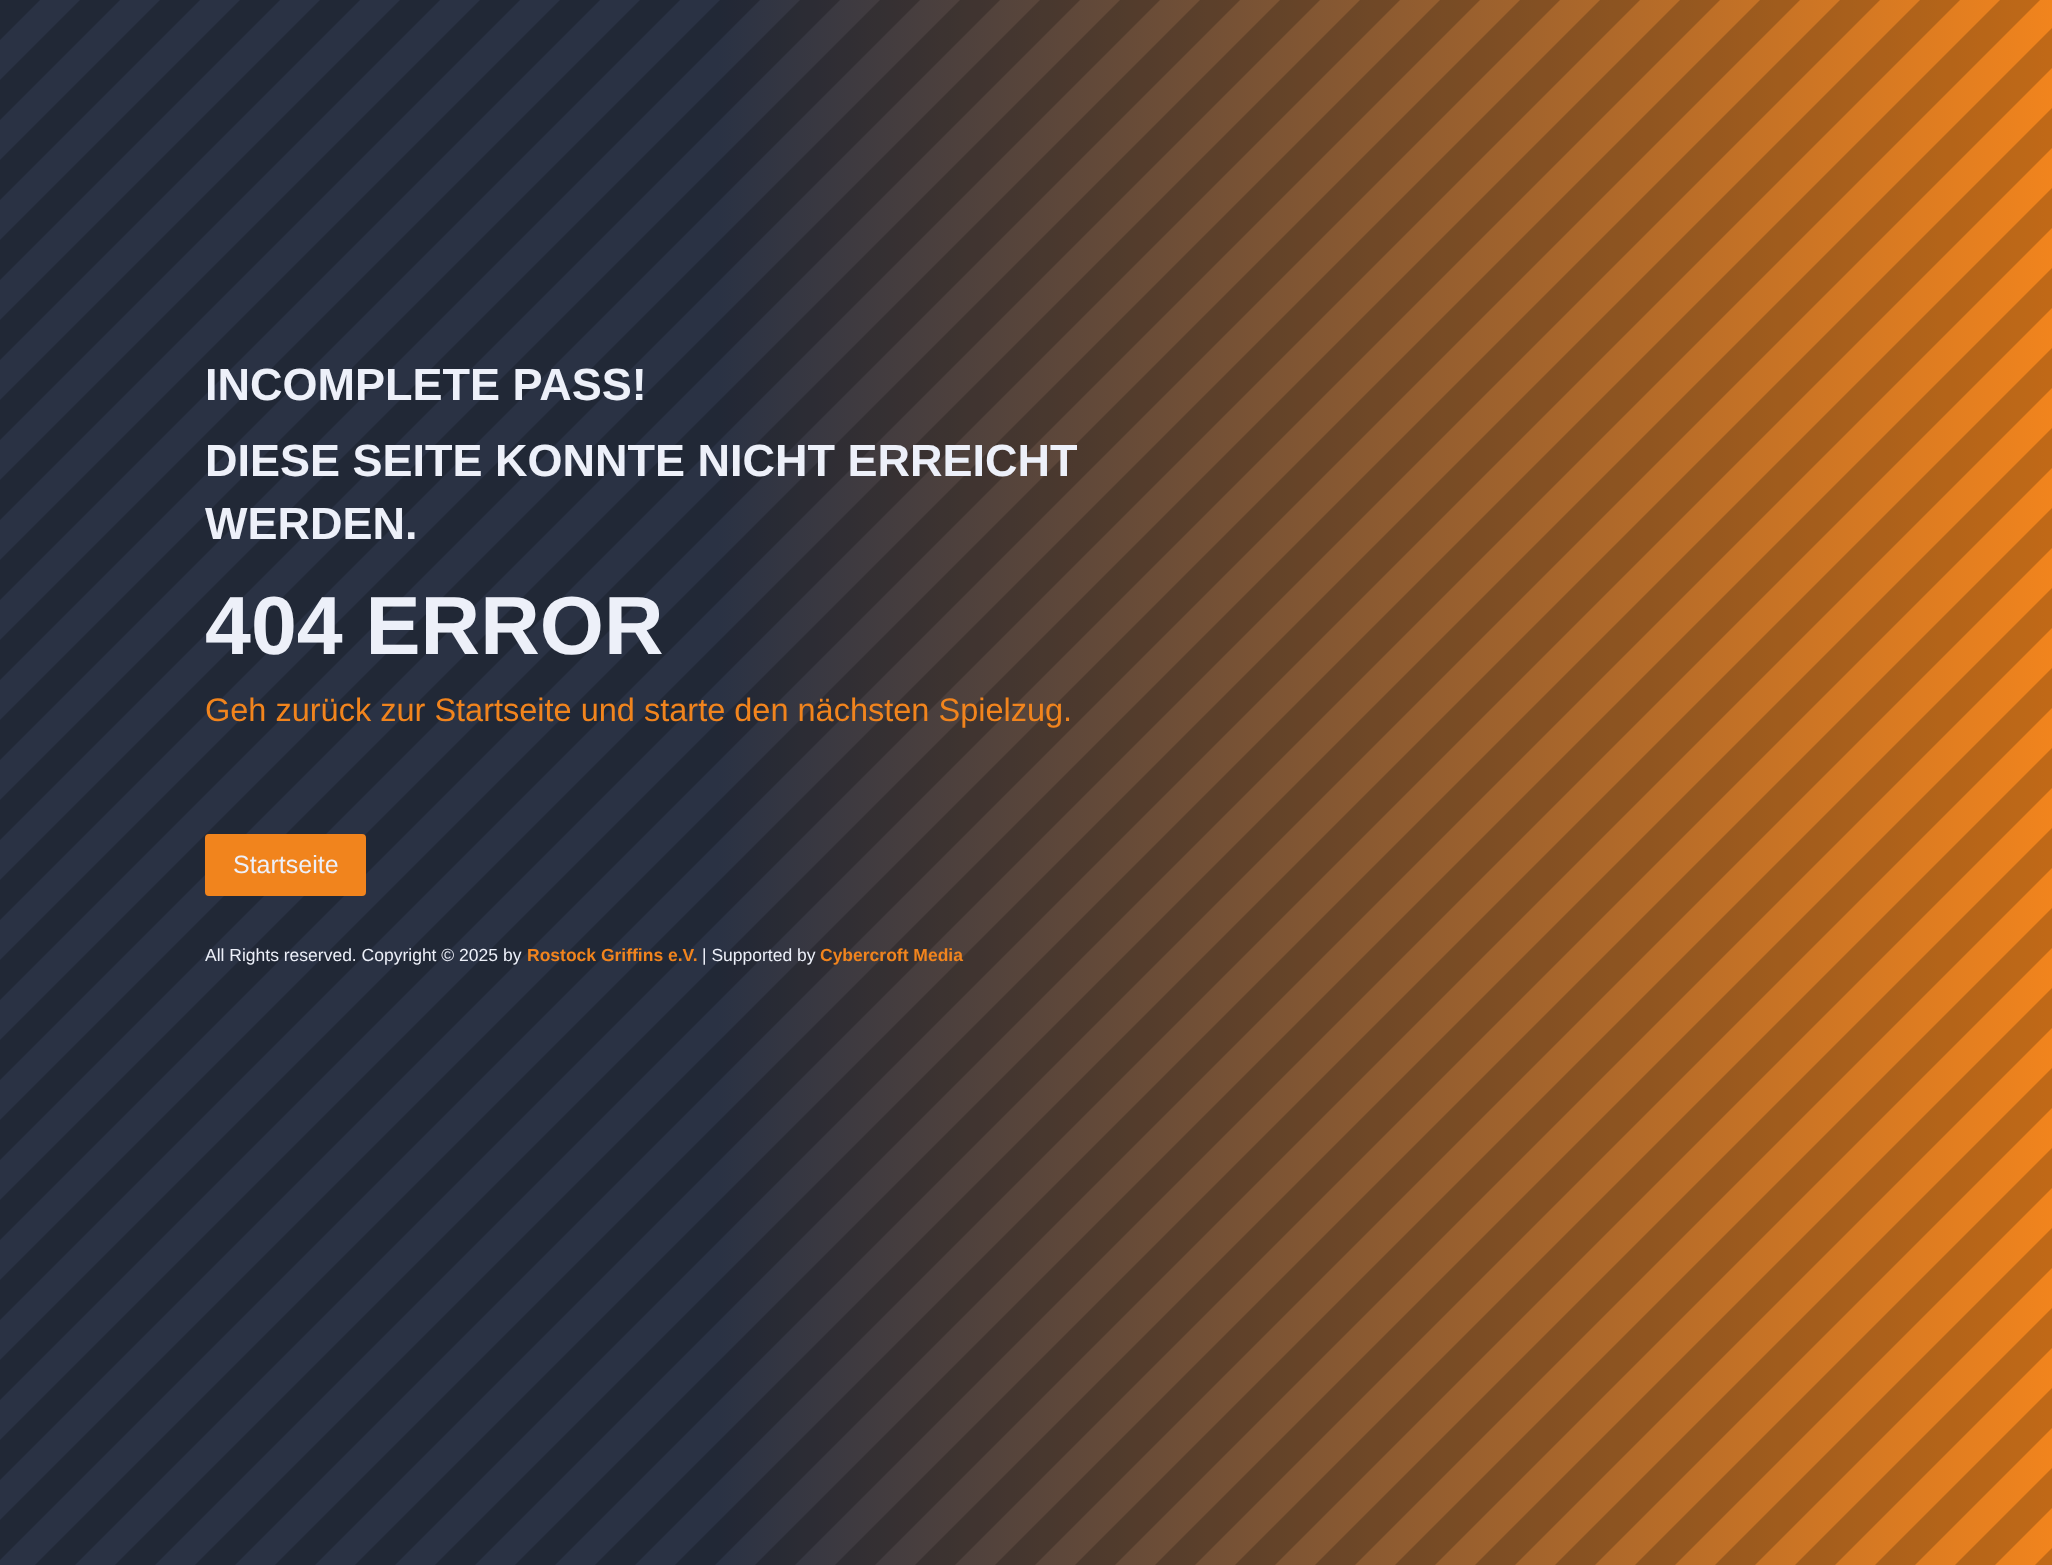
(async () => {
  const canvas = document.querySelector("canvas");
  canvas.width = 2052;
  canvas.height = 1565;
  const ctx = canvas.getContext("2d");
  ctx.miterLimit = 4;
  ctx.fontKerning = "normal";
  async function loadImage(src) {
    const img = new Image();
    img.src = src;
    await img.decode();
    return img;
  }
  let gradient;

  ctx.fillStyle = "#ffffff";
  ctx.fillRect(0, 0, 2052, 1565);
  gradient = ctx.createLinearGradient(0, 783, 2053, 783);
  gradient.addColorStop(0.35, "#2a3244");
  gradient.addColorStop(1, "#f1841d");
  ctx.fillStyle = gradient;
  ctx.fillRect(0, 0, 2052, 1565);
  ctx.drawImage(await loadImage("img/1.png"), 0, 0, 2052, 1565);
  ctx.fillStyle = "#f1841d";
  ctx.beginPath();
  ctx.roundRect(206.5, 835.5, 158, 59, 2.5);
  ctx.fill();
  ctx.strokeStyle = "#f1841d";
  ctx.lineWidth = 3;
  ctx.stroke();
  ctx.font = "bold 45px Liberation Sans";
  ctx.fillStyle = "#edf0f9";
  for (const [text, x, y] of [
    ["INCOMPLETE PASS!", 205, 400],
    ["DIESE SEITE KONNTE NICHT ERREICHT", 205, 476],
    ["WERDEN.", 205, 539],
  ]) {
    ctx.fillText(text, x, y);
  }
  ctx.font = "bold 82.5px Liberation Sans";
  ctx.fillText("404 ERROR", 205, 654);
  ctx.font = "32.5px Liberation Sans";
  ctx.fillStyle = "#f1841d";
  ctx.fillText("Geh zurück zur Startseite und starte den nächsten Spielzug.", 205, 721);
  ctx.font = "25px Liberation Sans";
  ctx.fillStyle = "#edf0f9";
  ctx.fillText("Startseite", 233, 873);
  ctx.font = "17.5px Liberation Sans";
  ctx.fillText("All Rights reserved. Copyright © 2025 by", 205, 961);
  ctx.font = "bold 17.5px Liberation Sans";
  ctx.fillStyle = "#f1841d";
  ctx.fillText("Rostock Griffins e.V.", 527, 961);
  ctx.font = "17.5px Liberation Sans";
  ctx.fillStyle = "#edf0f9";
  ctx.fillText("| Supported by", 702, 961);
  ctx.font = "bold 17.5px Liberation Sans";
  ctx.fillStyle = "#f1841d";
  ctx.fillText("Cybercroft Media", 820, 961);
})();
